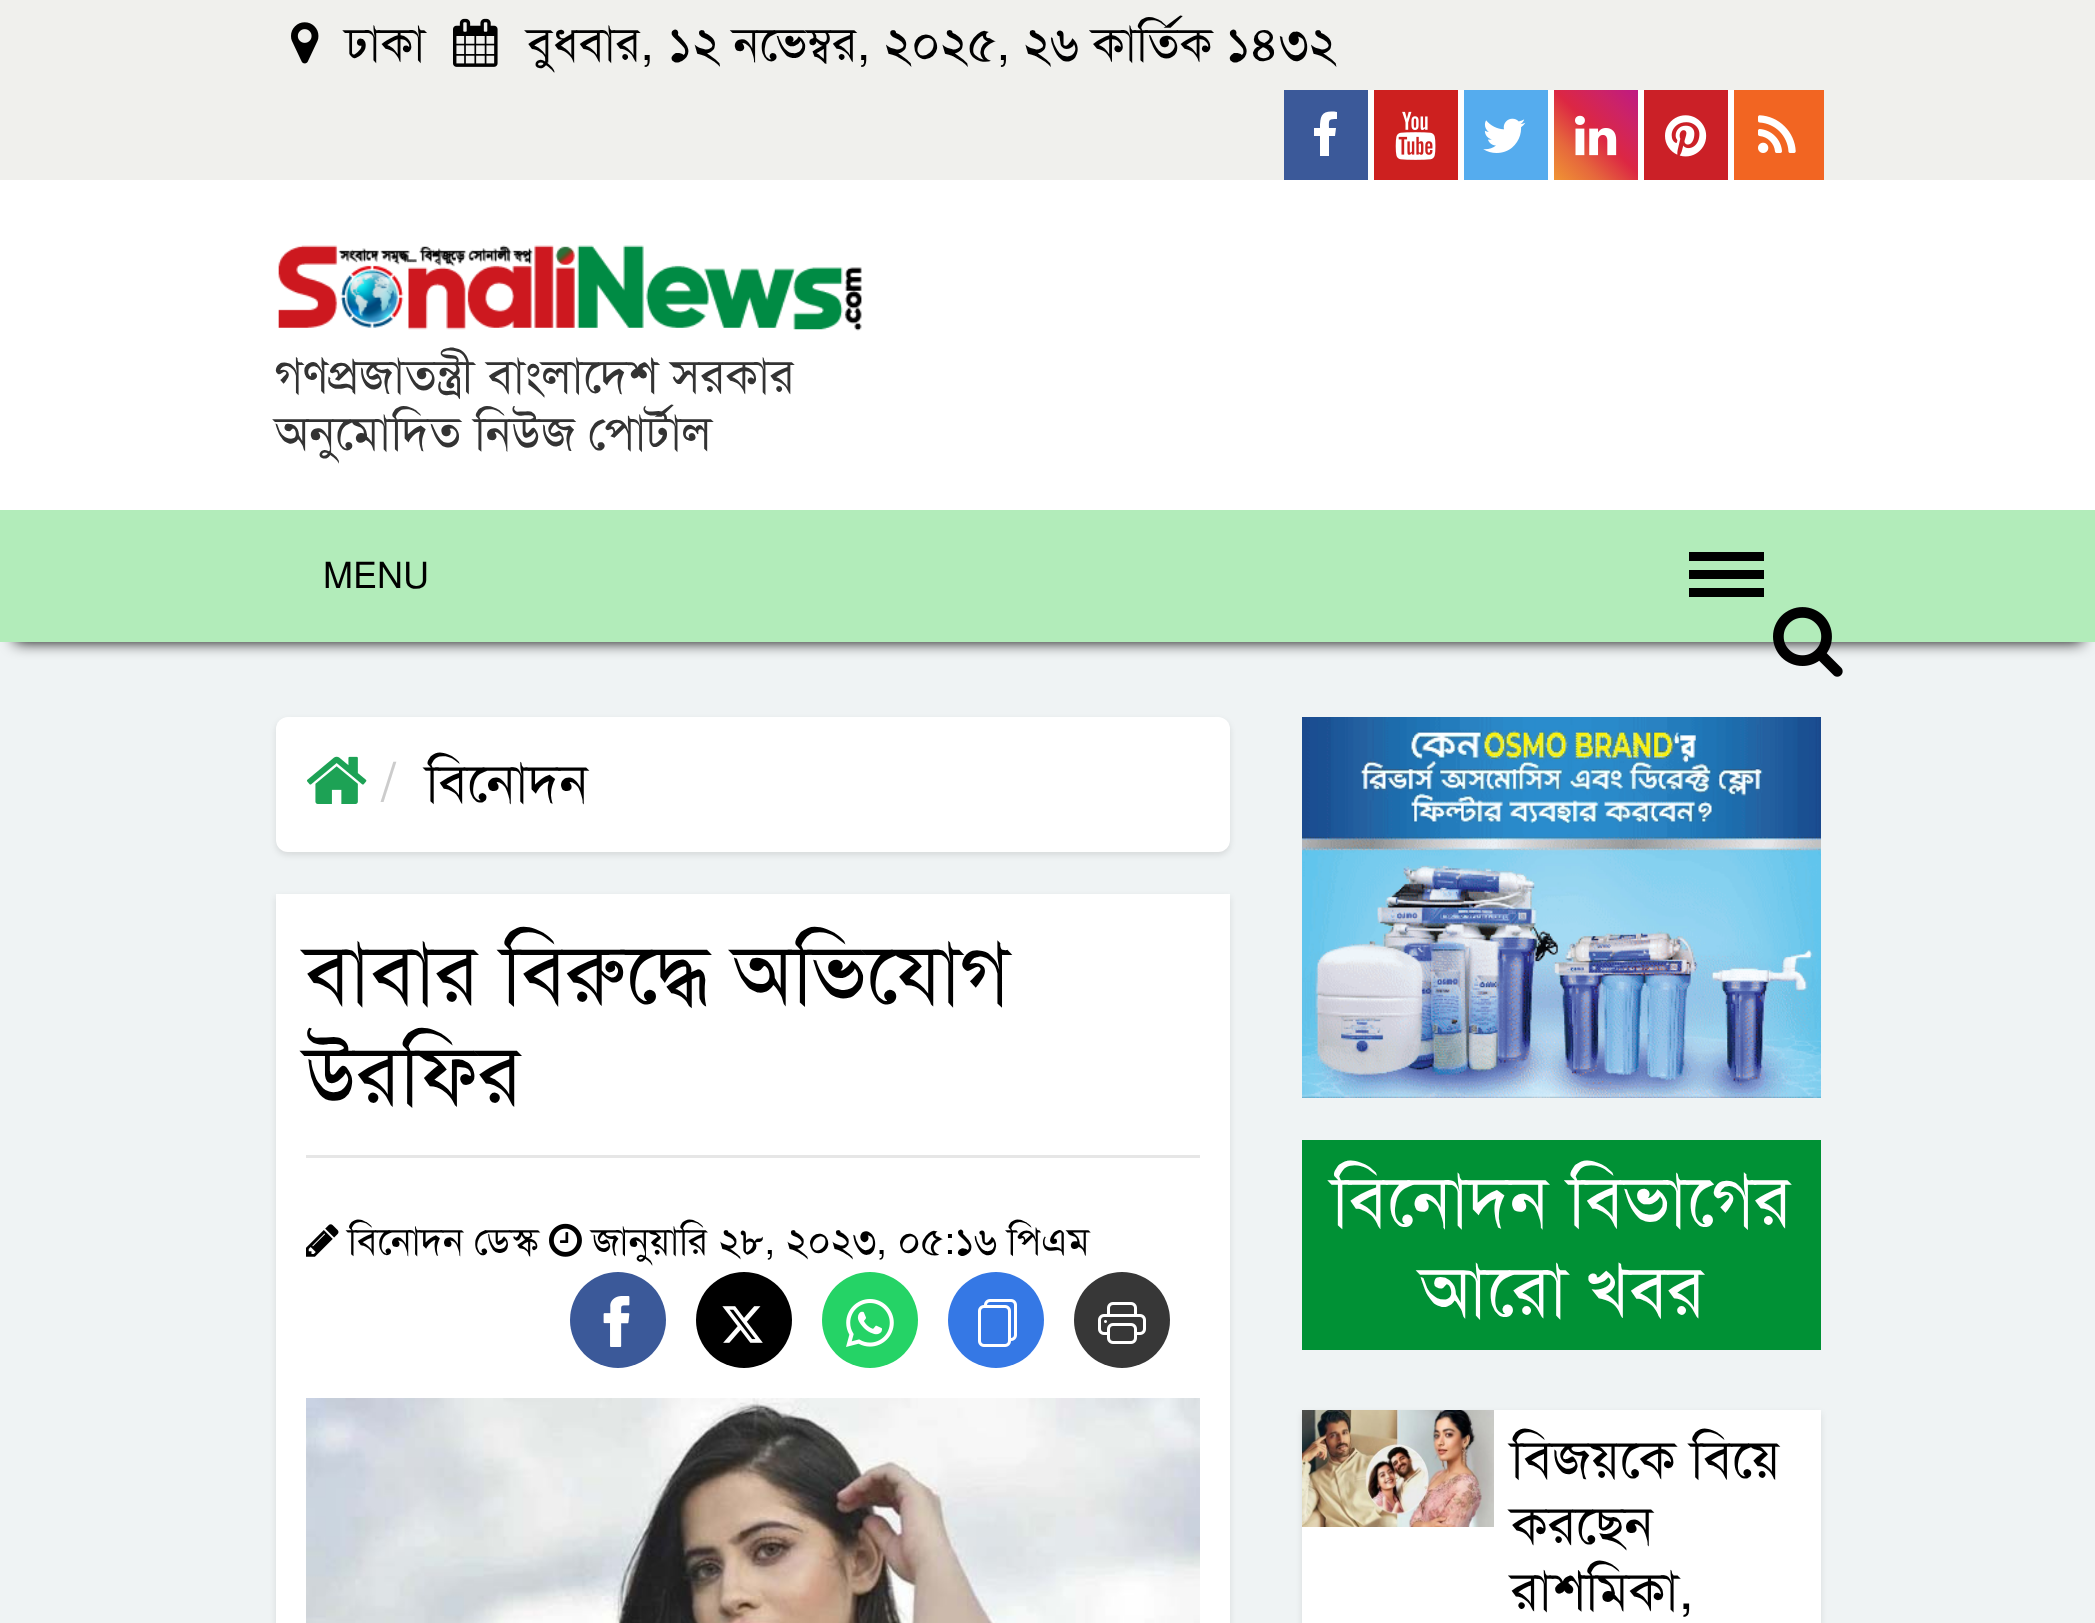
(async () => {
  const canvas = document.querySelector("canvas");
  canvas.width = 2095;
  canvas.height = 1623;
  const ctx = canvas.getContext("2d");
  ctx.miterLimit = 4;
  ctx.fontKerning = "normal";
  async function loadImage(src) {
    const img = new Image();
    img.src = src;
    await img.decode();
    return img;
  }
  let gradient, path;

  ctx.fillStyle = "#eff3f4";
  ctx.fillRect(0, 0, 2095, 1623);
  ctx.fillStyle = "#f0f0ed";
  ctx.fillRect(0, 0, 2095, 180);
  ctx.drawImage(await loadImage("img/1.png"), 291, 22, 28, 42);
  ctx.drawImage(await loadImage("img/2.png"), 453, 18, 45, 49);
  ctx.fillStyle = "#3b5999";
  ctx.fillRect(1284, 90, 84, 90);
  ctx.fillStyle = "#ffffff";
  ctx.fillRect(1368, 90, 6, 90);
  path = new Path2D("M1337 112V119C1328 119 1329 120 1329 128H1336L1335 136H1329V156H1320V136H1314V128H1320C1320 115 1322 110 1337 112Z");
  ctx.fill(path);
  ctx.fillStyle = "#cd201f";
  ctx.fillRect(1374, 90, 84, 90);
  ctx.fillStyle = "#ffffff";
  ctx.fillRect(1458, 90, 6, 90);
  ctx.drawImage(await loadImage("img/3.png"), 1395, 111, 41, 49);
  ctx.fillStyle = "#55acee";
  ctx.fillRect(1464, 90, 84, 90);
  ctx.fillStyle = "#ffffff";
  ctx.fillRect(1548, 90, 6, 90);
  ctx.drawImage(await loadImage("img/4.png"), 1483, 118, 43, 35);
  gradient = ctx.createLinearGradient(1554, 180, 1644, 90);
  gradient.addColorStop(0, "#f09433");
  gradient.addColorStop(0.25, "#e6683c");
  gradient.addColorStop(0.5, "#dc2743");
  gradient.addColorStop(0.75, "#cc2366");
  gradient.addColorStop(1, "#bc1888");
  ctx.fillStyle = gradient;
  ctx.fillRect(1554, 90, 84, 90);
  ctx.fillStyle = "#ffffff";
  ctx.fillRect(1638, 90, 6, 90);
  ctx.drawImage(await loadImage("img/5.png"), 1575, 115, 42, 41);
  ctx.fillStyle = "#cb2027";
  ctx.fillRect(1644, 90, 84, 90);
  ctx.fillStyle = "#ffffff";
  ctx.fillRect(1728, 90, 6, 90);
  ctx.drawImage(await loadImage("img/6.png"), 1665, 115, 42, 42);
  ctx.fillStyle = "#f26522";
  ctx.fillRect(1734, 90, 90, 90);
  ctx.drawImage(await loadImage("img/7.png"), 1758, 115, 38, 38);
  ctx.fillStyle = "#ffffff";
  ctx.fillRect(0, 180, 2095, 330);
  ctx.drawImage(await loadImage("img/8.png"), 278, 245, 584, 86);
  ctx.fillStyle = "#000000";
  ctx.filter = "blur(7.5px)";
  ctx.beginPath();
  ctx.rect(15, 540, 2067, 102);
  ctx.fill();
  ctx.filter = "none";
  for (const [x, y, w, h, color] of [
    [0, 510, 2095, 132, "#b2ecba"],
    [1689, 552, 75, 9, "#000000"],
    [1689, 570, 75, 9, "#000000"],
    [1689, 588, 75, 9, "#000000"],
  ]) {
    ctx.fillStyle = color;
    ctx.fillRect(x, y, w, h);
  }
  ctx.drawImage(await loadImage("img/9.png"), 1773, 607, 70, 70);
  ctx.fillStyle = "rgba(0, 0, 0, 0.1)";
  ctx.filter = "blur(3px)";
  ctx.beginPath();
  ctx.roundRect(276, 720, 954, 135, 12);
  ctx.fill();
  ctx.filter = "none";
  ctx.fillStyle = "#ffffff";
  ctx.beginPath();
  ctx.roundRect(276, 717, 954, 135, 12);
  ctx.fill();
  ctx.drawImage(await loadImage("img/10.png"), 307, 756, 60, 48);
  ctx.fillStyle = "rgba(0, 0, 0, 0.1)";
  ctx.filter = "blur(3px)";
  ctx.beginPath();
  ctx.rect(276, 897, 954, 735);
  ctx.fill();
  ctx.filter = "none";
  ctx.fillStyle = "#ffffff";
  ctx.fillRect(276, 894, 954, 729);
  ctx.fillStyle = "#e6e6e6";
  ctx.fillRect(306, 1155, 894, 3);
  ctx.drawImage(await loadImage("img/11.png"), 306, 1224, 33, 33);
  ctx.drawImage(await loadImage("img/12.png"), 549, 1223, 33, 34);
  ctx.fillStyle = "#3b5999";
  ctx.beginPath();
  ctx.arc(618, 1320, 48, 0, Math.PI * 2);
  ctx.fill();
  ctx.drawImage(await loadImage("img/13.png"), 603, 1296, 27, 51);
  ctx.fillStyle = "#000000";
  ctx.beginPath();
  ctx.arc(744, 1320, 48, 0, Math.PI * 2);
  ctx.fill();
  ctx.drawImage(await loadImage("img/14.png"), 722, 1306, 41, 37);
  ctx.fillStyle = "#25d366";
  ctx.beginPath();
  ctx.arc(870, 1320, 48, 0, Math.PI * 2);
  ctx.fill();
  ctx.drawImage(await loadImage("img/15.png"), 846, 1299, 48, 48);
  ctx.fillStyle = "#3578e5";
  ctx.beginPath();
  ctx.arc(996, 1320, 48, 0, Math.PI * 2);
  ctx.fill();
  ctx.drawImage(await loadImage("img/16.png"), 978, 1299, 39, 48);
  ctx.fillStyle = "#373737";
  ctx.beginPath();
  ctx.arc(1122, 1320, 48, 0, Math.PI * 2);
  ctx.fill();
  ctx.drawImage(await loadImage("img/17.png"), 1098, 1302, 48, 42);
  ctx.drawImage(await loadImage("img/18.png"), 306, 1398, 894, 225);
  ctx.drawImage(await loadImage("img/19.png"), 1302, 717, 519, 381);
  ctx.fillStyle = "#009135";
  ctx.fillRect(1302, 1140, 519, 210);
  ctx.fillStyle = "rgba(0, 0, 0, 0.1)";
  ctx.filter = "blur(3px)";
  ctx.beginPath();
  ctx.rect(1302, 1413, 519, 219);
  ctx.fill();
  ctx.filter = "none";
  ctx.fillStyle = "#ffffff";
  ctx.fillRect(1302, 1410, 519, 213);
  ctx.drawImage(await loadImage("img/20.png"), 1302, 1410, 192, 117);
  ctx.font = "48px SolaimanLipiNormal";
  ctx.fillStyle = "#000000";
  ctx.fillText("ঢাকা", 345, 60);
  ctx.fillText("বুধবার, ১২ নভেম্বর, ২০২৫, ২৬ কার্তিক ১৪৩২", 527, 60);
  ctx.fillStyle = "#333333";
  ctx.fillText("গণপ্রজাতন্ত্রী বাংলাদেশ সরকার", 275, 392);
  ctx.fillText("অনুমোদিত নিউজ পোর্টাল", 275, 449);
  ctx.font = "36px SolaimanLipiNormal";
  ctx.fillStyle = "#000000";
  ctx.fillText("MENU", 323, 588);
  ctx.font = "54px SolaimanLipiNormal";
  ctx.fillStyle = "#cccccc";
  ctx.fillText("/", 381, 801);
  ctx.fillStyle = "#000000";
  ctx.fillText("বিনোদন", 426, 801);
  ctx.font = "84px SolaimanLipiNormal";
  ctx.fillText("বাবার বিরুদ্ধে অভিযোগ", 305, 1002);
  ctx.fillText("উরফির", 305, 1103);
  ctx.font = "38.4px SolaimanLipiNormal";
  ctx.fillText("বিনোদন ডেস্ক", 348, 1254);
  ctx.fillText("জানুয়ারি ২৮, ২০২৩, ০৫:১৬ পিএম", 592, 1254);
  ctx.font = "72px SolaimanLipiNormal";
  ctx.fillStyle = "#ffffff";
  ctx.fillText("বিনোদন বিভাগের", 1332, 1225);
  ctx.fillText("আরো খবর", 1420, 1315);
  ctx.font = "54px SolaimanLipiNormal";
  ctx.fillStyle = "#000000";
  for (const [text, x, y] of [
    ["বিজয়কে বিয়ে", 1511, 1477],
    ["করছেন", 1511, 1543],
    ["রাশমিকা,", 1511, 1609],
  ]) {
    ctx.fillText(text, x, y);
  }
})();
